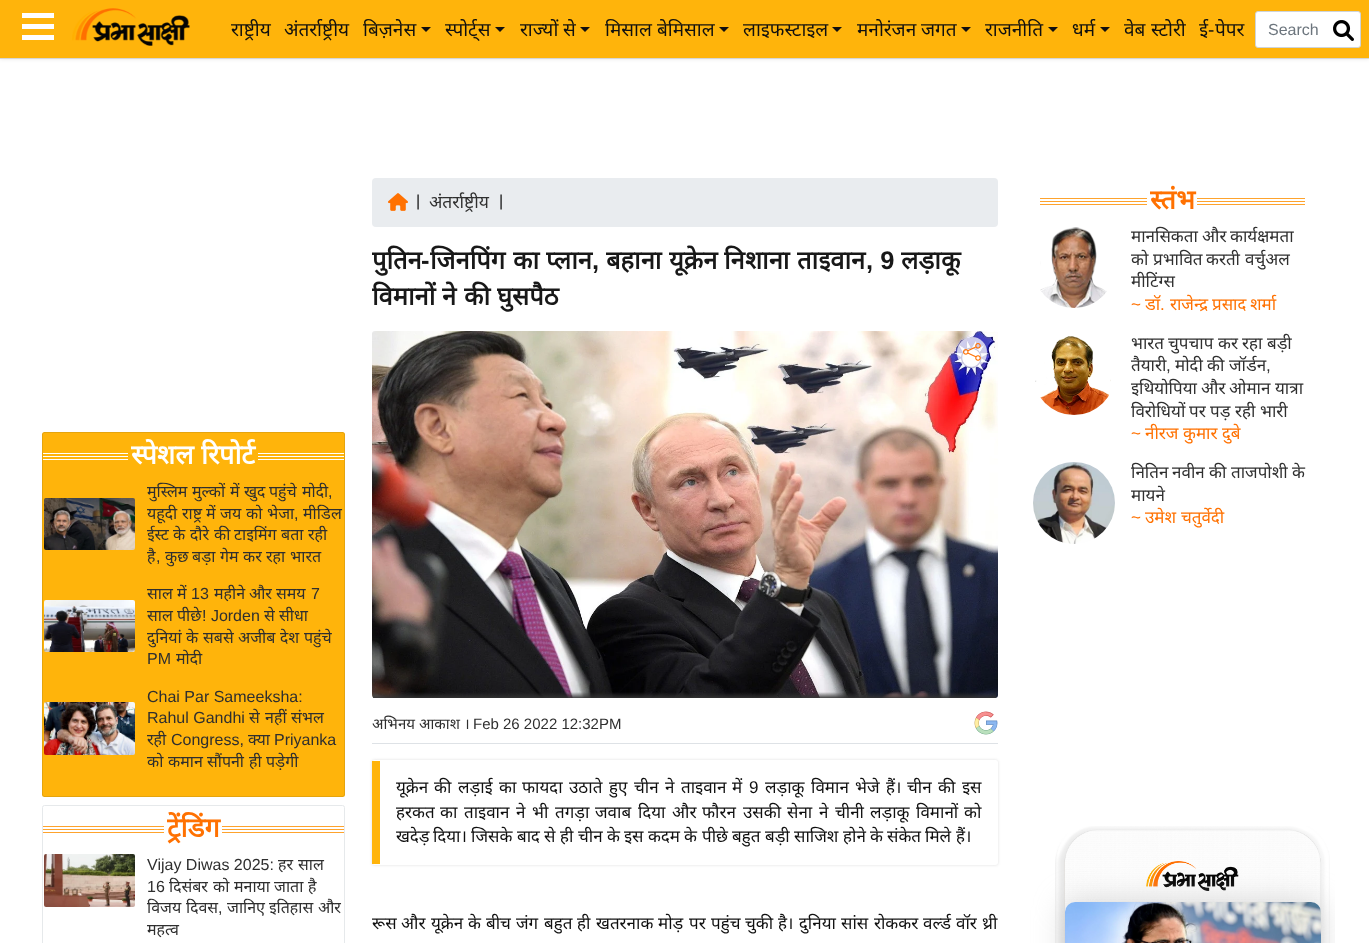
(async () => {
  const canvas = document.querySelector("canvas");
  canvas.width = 1369;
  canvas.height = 943;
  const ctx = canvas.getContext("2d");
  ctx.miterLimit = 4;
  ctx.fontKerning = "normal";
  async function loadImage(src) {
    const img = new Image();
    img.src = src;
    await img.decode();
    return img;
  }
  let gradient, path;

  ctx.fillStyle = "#ffffff";
  ctx.fillRect(0, 0, 1369, 943);
  ctx.fillStyle = "rgba(0, 0, 0, 0.1)";
  ctx.filter = "blur(2px)";
  ctx.beginPath();
  ctx.rect(0, 0, 1369, 59);
  ctx.fill();
  ctx.filter = "none";
  for (const [x, y, w, h, color] of [
    [0, 0, 1369, 58, "#ffb40b"],
    [0, 58, 1369, 1, "#d6d6d6"],
    [22, 13, 32, 5, "#ffffff"],
    [22, 24, 32, 5, "#ffffff"],
    [22, 35, 32, 5, "#ffffff"],
  ]) {
    ctx.fillStyle = color;
    ctx.fillRect(x, y, w, h);
  }
  ctx.drawImage(await loadImage("img/1.png"), 72, 8, 118, 38);
  ctx.fillStyle = "#101010";
  path = new Path2D("M421 27H431L426 32Z");
  ctx.fill(path);
  path = new Path2D("M495 27H505L500 32Z");
  ctx.fill(path);
  path = new Path2D("M580 27H590L585 32Z");
  ctx.fill(path);
  path = new Path2D("M719 27H729L724 32Z");
  ctx.fill(path);
  path = new Path2D("M832 27H842L837 32Z");
  ctx.fill(path);
  path = new Path2D("M961 27H971L966 32Z");
  ctx.fill(path);
  path = new Path2D("M1048 27H1058L1053 32Z");
  ctx.fill(path);
  path = new Path2D("M1100 27H1110L1105 32Z");
  ctx.fill(path);
  ctx.fillStyle = "#ffffff";
  ctx.beginPath();
  ctx.roundRect(1255.5, 11.5, 105, 36, 2.5);
  ctx.fill();
  ctx.strokeStyle = "#ced4da";
  ctx.stroke();
  ctx.drawImage(await loadImage("img/2.png"), 1333, 20, 21, 21);
  ctx.fillStyle = "#ffb40b";
  ctx.beginPath();
  ctx.roundRect(42, 432, 303, 365, 2.5);
  ctx.fill();
  ctx.beginPath();
  ctx.roundRect(42.5, 432.5, 302, 364, 2);
  ctx.strokeStyle = "rgba(0, 34, 51, 0.1)";
  ctx.stroke();
  for (const [x, y, w, h, color] of [
    [43, 456, 301, 1, "#ffffff"],
    [43, 453, 301, 1, "#ffffff"],
    [43, 459, 301, 1, "#ffffff"],
    [128, 453, 130, 7, "#ffb40b"],
  ]) {
    ctx.fillStyle = color;
    ctx.fillRect(x, y, w, h);
  }
  ctx.drawImage(await loadImage("img/3.png"), 44, 498, 91, 52);
  ctx.drawImage(await loadImage("img/4.png"), 44, 600, 91, 52);
  ctx.drawImage(await loadImage("img/5.png"), 44, 702, 91, 53);
  ctx.beginPath();
  ctx.roundRect(42.5, 805.5, 302, 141, 2);
  ctx.strokeStyle = "#e6e9eb";
  ctx.stroke();
  for (const [x, y, w, h, color] of [
    [43, 829, 301, 1, "#fea32d"],
    [43, 826, 301, 1, "#fea32d"],
    [43, 832, 301, 1, "#fea32d"],
    [164, 826, 58, 7, "#ffffff"],
  ]) {
    ctx.fillStyle = color;
    ctx.fillRect(x, y, w, h);
  }
  ctx.drawImage(await loadImage("img/6.png"), 44, 854, 91, 53);
  ctx.fillStyle = "#e9ecef";
  ctx.beginPath();
  ctx.roundRect(372, 178, 626, 49, 4);
  ctx.fill();
  ctx.drawImage(await loadImage("img/7.png"), 388, 193, 20, 18);
  ctx.drawImage(await loadImage("img/8.png"), 372, 331, 626, 367);
  ctx.fillStyle = "rgba(255, 255, 255, 0.74)";
  ctx.beginPath();
  ctx.roundRect(957, 337, 30, 31, 15);
  ctx.fill();
  ctx.drawImage(await loadImage("img/9.png"), 963, 343, 18, 18);
  gradient = ctx.createLinearGradient(685, 692, 685, 698);
  gradient.addColorStop(0, "rgba(51, 51, 51, 0)");
  gradient.addColorStop(1, "rgba(51, 51, 51, 0.9)");
  ctx.fillStyle = gradient;
  ctx.fillRect(373, 692, 623, 6);
  ctx.fillStyle = "#dee2e6";
  ctx.fillRect(372, 743, 626, 1);
  ctx.drawImage(await loadImage("img/10.png"), 974, 711, 24, 24);
  ctx.save();
  path = new Path2D("M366 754H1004V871H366ZM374.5 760H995.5C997 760 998 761 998 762.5V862.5C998 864 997 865 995.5 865H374.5C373 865 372 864 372 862.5V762.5C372 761 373 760 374.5 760Z");
  ctx.clip(path, "evenodd");
  ctx.fillStyle = "#dddddd";
  ctx.filter = "blur(1.5px)";
  ctx.beginPath();
  ctx.roundRect(372, 760, 626, 105, 2.5);
  ctx.fill();
  ctx.filter = "none";
  ctx.restore();
  for (const [x, y, w, h, color] of [
    [372, 761, 8, 103, "#ffb40b"],
    [1040, 201, 265, 1, "#fea32d"],
    [1040, 198, 265, 1, "#fea32d"],
    [1040, 204, 265, 1, "#fea32d"],
    [1147, 198, 50, 7, "#ffffff"],
  ]) {
    ctx.fillStyle = color;
    ctx.fillRect(x, y, w, h);
  }
  ctx.drawImage(await loadImage("img/11.png"), 1040, 227, 67, 81);
  ctx.drawImage(await loadImage("img/12.png"), 1035, 336, 76, 79);
  ctx.drawImage(await loadImage("img/13.png"), 1033, 462, 82, 82);
  ctx.drawImage(await loadImage("img/14.png"), 1055, 826, 275, 117);
  ctx.drawImage(await loadImage("img/16.png"), 1146, 861, 93, 30);
  ctx.save();
  ctx.beginPath();
  ctx.rect(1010, 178, 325, 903);
  ctx.clip();
  ctx.fillStyle = "rgba(191, 190, 190, 0.65)";
  ctx.filter = "blur(15px)";
  ctx.beginPath();
  ctx.roundRect(1065, 902, 256, 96, 10);
  ctx.fill();
  ctx.filter = "none";
  ctx.restore();
  path = new Path2D("M1075 902H1311C1316.5 902 1321 906.5 1321 912V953H1065V912C1065 906.5 1069.5 902 1075 902Z");
  ctx.fill(path);
  ctx.drawImage(await loadImage("img/15.png"), 1065, 902, 256, 41);
  ctx.font = "19px Noto Sans";
  ctx.fillStyle = "#101010";
  for (const [text, x, y] of [
    ["राष्ट्रीय", 231, 36],
    ["अंतर्राष्ट्रीय", 284, 36],
    ["बिज़नेस", 363, 36],
    ["स्पोर्ट्स", 445, 36],
    ["राज्यों", 520, 36],
    ["से", 563, 36],
    ["मिसाल", 605, 36],
    ["बेमिसाल", 657, 36],
    ["लाइफस्टाइल", 743, 36],
    ["मनोरंजन", 857, 36],
    ["जगत", 921, 36],
    ["राजनीति", 985, 36],
    ["धर्म", 1072, 36],
    ["वेब", 1124, 36],
    ["स्टोरी", 1151, 36],
    ["ई", 1199, 36],
  ]) {
    ctx.fillText(text, x, y);
  }
  ctx.font = "19px Liberation Sans";
  ctx.fillText("-", 1208, 36);
  ctx.font = "19px Noto Sans";
  ctx.fillText("पेपर", 1215, 36);
  ctx.font = "16px Liberation Sans";
  ctx.fillStyle = "#6c757d";
  ctx.fillText("Search", 1268, 35);
  ctx.font = "bold 27px Noto Sans";
  ctx.fillStyle = "#ffffff";
  ctx.fillText("स्पेशल", 131, 464);
  ctx.fillText("रिपोर्ट", 201, 464);
  ctx.font = "16px Noto Sans";
  ctx.fillStyle = "#2f2f2f";
  for (const [text, x, y] of [
    ["मुस्लिम", 147, 497],
    ["मुल्कों", 192, 497],
    ["में", 230, 497],
    ["खुद", 244, 497],
    ["पहुंचे", 269, 497],
    ["मोदी", 302, 497],
  ]) {
    ctx.fillText(text, x, y);
  }
  ctx.font = "16px Liberation Sans";
  ctx.fillText(",", 328, 497);
  ctx.font = "16px Noto Sans";
  for (const [text, x, y] of [
    ["यहूदी", 147, 519],
    ["राष्ट्र", 182, 519],
    ["में", 206, 519],
    ["जय", 220, 519],
    ["को", 246, 519],
    ["भेजा", 267, 519],
    ["मीडिल", 303, 519],
  ]) {
    ctx.fillText(text, x, y);
  }
  ctx.font = "16px Liberation Sans";
  ctx.fillText(",", 294, 519);
  ctx.font = "16px Noto Sans";
  for (const [text, x, y] of [
    ["ईस्ट", 147, 540],
    ["के", 173, 540],
    ["दौरे", 190, 540],
    ["की", 214, 540],
    ["टाइमिंग", 234, 540],
    ["बता", 281, 540],
    ["रही", 308, 540],
    ["है", 147, 562],
    ["बड़ा", 192, 562],
    ["गेम", 220, 562],
    ["कर", 243, 562],
    ["रहा", 266, 562],
    ["भारत", 290, 562],
  ]) {
    ctx.fillText(text, x, y);
  }
  ctx.font = "16px Liberation Sans";
  ctx.fillText(",", 156, 562);
  ctx.font = "16px Noto Sans";
  for (const [text, x, y] of [
    ["कुछ", 165, 562],
    ["साल", 147, 599],
    ["में", 177, 599],
  ]) {
    ctx.fillText(text, x, y);
  }
  ctx.font = "16px Liberation Sans";
  ctx.fillText("13", 191, 599);
  ctx.font = "16px Noto Sans";
  for (const [text, x, y] of [
    ["महीने", 214, 599],
    ["और", 249, 599],
    ["समय", 276, 599],
  ]) {
    ctx.fillText(text, x, y);
  }
  ctx.font = "16px Liberation Sans";
  ctx.fillText("7", 311, 599);
  ctx.font = "16px Noto Sans";
  ctx.fillText("साल", 147, 621);
  ctx.fillText("पीछे", 177, 621);
  ctx.font = "16px Liberation Sans";
  ctx.fillText("! Jorden", 202, 621);
  ctx.font = "16px Noto Sans";
  for (const [text, x, y] of [
    ["से", 264, 621],
    ["सीधा", 279, 621],
    ["दुनियां", 147, 643],
    ["के", 186, 643],
    ["सबसे", 203, 643],
    ["अजीब", 238, 643],
    ["देश", 280, 643],
    ["पहुंचे", 304, 643],
  ]) {
    ctx.fillText(text, x, y);
  }
  ctx.font = "16px Liberation Sans";
  ctx.fillText("PM", 147, 664);
  ctx.font = "16px Noto Sans";
  ctx.fillText("मोदी", 176, 664);
  ctx.font = "16px Liberation Sans";
  ctx.fillText("Chai Par Sameeksha:", 147, 702);
  ctx.fillText("Rahul Gandhi", 147, 723);
  ctx.font = "16px Noto Sans";
  for (const [text, x, y] of [
    ["से", 249, 723],
    ["नहीं", 265, 723],
    ["संभल", 291, 723],
    ["रही", 147, 745],
  ]) {
    ctx.fillText(text, x, y);
  }
  ctx.font = "16px Liberation Sans";
  ctx.fillText("Congress,", 171, 745);
  ctx.font = "16px Noto Sans";
  ctx.fillText("क्या", 248, 745);
  ctx.font = "16px Liberation Sans";
  ctx.fillText("Priyanka", 274, 745);
  ctx.font = "16px Noto Sans";
  for (const [text, x, y] of [
    ["को", 147, 767],
    ["कमान", 168, 767],
    ["सौंपनी", 207, 767],
    ["ही", 249, 767],
    ["पड़ेगी", 266, 767],
  ]) {
    ctx.fillText(text, x, y);
  }
  ctx.font = "bold 27px Noto Sans";
  ctx.fillStyle = "#ff7101";
  ctx.fillText("ट्रेंडिंग", 167, 837);
  ctx.font = "16px Liberation Sans";
  ctx.fillStyle = "#2f2f2f";
  ctx.fillText("Vijay Diwas 2025:", 147, 870);
  ctx.font = "16px Noto Sans";
  ctx.fillText("हर", 278, 870);
  ctx.fillText("साल", 298, 870);
  ctx.font = "16px Liberation Sans";
  ctx.fillText("16", 147, 892);
  ctx.font = "16px Noto Sans";
  for (const [text, x, y] of [
    ["दिसंबर", 169, 892],
    ["को", 213, 892],
    ["मनाया", 234, 892],
    ["जाता", 274, 892],
    ["है", 308, 892],
    ["विजय", 147, 913],
    ["दिवस", 186, 913],
  ]) {
    ctx.fillText(text, x, y);
  }
  ctx.font = "16px Liberation Sans";
  ctx.fillText(",", 218, 913);
  ctx.font = "16px Noto Sans";
  for (const [text, x, y] of [
    ["जानिए", 227, 913],
    ["इतिहास", 269, 913],
    ["और", 318, 913],
    ["महत्व", 147, 935],
  ]) {
    ctx.fillText(text, x, y);
  }
  ctx.font = "16px Liberation Sans";
  ctx.fillStyle = "#101010";
  ctx.fillText("|", 416, 206);
  ctx.font = "17.5px Noto Sans";
  ctx.fillStyle = "#2f2f2f";
  ctx.fillText("अंतर्राष्ट्रीय", 429, 208);
  ctx.font = "16px Liberation Sans";
  ctx.fillStyle = "#101010";
  ctx.fillText("|", 499, 206);
  ctx.font = "bold 25.5px Noto Sans";
  ctx.fillStyle = "#181818";
  ctx.fillText("पुतिन", 372, 269);
  ctx.font = "bold 25.5px Liberation Sans";
  ctx.fillText("-", 421, 269);
  ctx.font = "bold 25.5px Noto Sans";
  for (const [text, x, y] of [
    ["जिनपिंग", 430, 269],
    ["का", 513, 269],
    ["प्लान", 546, 269],
    ["बहाना", 606, 269],
    ["यूक्रेन", 669, 269],
    ["निशाना", 724, 269],
    ["ताइवान", 797, 269],
  ]) {
    ctx.fillText(text, x, y);
  }
  ctx.font = "bold 25.5px Liberation Sans";
  ctx.fillText(", 9", 866, 269);
  ctx.font = "bold 25.5px Noto Sans";
  ctx.fillText("लड़ाकू", 901, 269);
  ctx.font = "bold 25.5px Liberation Sans";
  ctx.fillText(",", 592, 269);
  ctx.font = "bold 25.5px Noto Sans";
  for (const [text, x, y] of [
    ["विमानों", 372, 305],
    ["ने", 442, 305],
    ["की", 464, 305],
    ["घुसपैठ", 497, 305],
  ]) {
    ctx.fillText(text, x, y);
  }
  ctx.font = "15px Noto Sans";
  ctx.fillStyle = "#2f2f2f";
  for (const [text, x, y] of [
    ["अभिनय", 372, 729],
    ["आकाश", 419, 729],
    ["।", 464, 729],
  ]) {
    ctx.fillText(text, x, y);
  }
  ctx.font = "15px Liberation Sans";
  ctx.fillText("Feb 26 2022 12:32PM", 473, 729);
  ctx.font = "17px Noto Sans";
  ctx.fillStyle = "#101010";
  for (const [text, x, y] of [
    ["यूक्रेन", 396, 793],
    ["की", 434, 793],
    ["लड़ाई", 458, 793],
    ["का", 499, 793],
    ["फायदा", 522, 793],
    ["उठाते", 569, 793],
    ["हुए", 609, 793],
    ["चीन", 634, 793],
    ["ने", 665, 793],
    ["ताइवान", 681, 793],
    ["में", 732, 793],
  ]) {
    ctx.fillText(text, x, y);
  }
  ctx.font = "17px Liberation Sans";
  ctx.fillText("9", 749, 793);
  ctx.font = "17px Noto Sans";
  for (const [text, x, y] of [
    ["लड़ाकू", 765, 793],
    ["विमान", 811, 793],
    ["भेजे", 855, 793],
    ["हैं।", 886, 793],
    ["चीन", 907, 793],
    ["की", 938, 793],
    ["इस", 962, 793],
    ["हरकत", 396, 818],
    ["का", 440, 818],
    ["ताइवान", 464, 818],
    ["ने", 516, 818],
    ["भी", 532, 818],
    ["तगड़ा", 555, 818],
    ["जवाब", 595, 818],
    ["दिया", 638, 818],
    ["और", 672, 818],
    ["फौरन", 702, 818],
    ["उसकी", 743, 818],
    ["सेना", 787, 818],
    ["ने", 819, 818],
    ["चीनी", 835, 818],
    ["लड़ाकू", 870, 818],
    ["विमानों", 916, 818],
    ["को", 964, 818],
    ["खदेड़", 396, 842],
    ["दिया।", 433, 842],
    ["जिसके", 471, 842],
    ["बाद", 517, 842],
    ["से", 544, 842],
    ["ही", 560, 842],
    ["चीन", 578, 842],
    ["के", 607, 842],
    ["इस", 624, 842],
    ["कदम", 648, 842],
    ["के", 684, 842],
    ["पीछे", 702, 842],
    ["बहुत", 732, 842],
    ["बड़ी", 765, 842],
    ["साजिश", 794, 842],
    ["होने", 843, 842],
    ["के", 870, 842],
    ["संकेत", 887, 842],
    ["मिले", 925, 842],
    ["हैं।", 956, 842],
    ["रूस", 372, 929],
    ["और", 401, 929],
    ["यूक्रेन", 431, 929],
    ["के", 468, 929],
    ["बीच", 486, 929],
    ["जंग", 516, 929],
    ["बहुत", 544, 929],
    ["ही", 577, 929],
    ["खतरनाक", 596, 929],
    ["मोड़", 658, 929],
    ["पर", 689, 929],
    ["पहुंच", 711, 929],
    ["चुकी", 745, 929],
    ["है।", 778, 929],
    ["दुनिया", 799, 929],
    ["सांस", 841, 929],
    ["रोककर", 874, 929],
    ["वर्ल्ड", 923, 929],
    ["वॉर", 956, 929],
    ["थ्री", 982, 929],
  ]) {
    ctx.fillText(text, x, y);
  }
  ctx.font = "bold 27px Noto Sans";
  ctx.fillStyle = "#ff7101";
  ctx.fillText("स्तंभ", 1150, 209);
  ctx.font = "17px Noto Sans";
  ctx.fillStyle = "#2f2f2f";
  for (const [text, x, y] of [
    ["मानसिकता", 1131, 242],
    ["और", 1202, 242],
    ["कार्यक्षमता", 1230, 242],
    ["को", 1131, 265],
    ["प्रभावित", 1153, 265],
    ["करती", 1206, 265],
    ["वर्चुअल", 1245, 265],
    ["मीटिंग्स", 1131, 287],
  ]) {
    ctx.fillText(text, x, y);
  }
  ctx.font = "17px Liberation Sans";
  ctx.fillStyle = "#ff7101";
  ctx.fillText("~", 1131, 310);
  ctx.font = "17px Noto Sans";
  for (const [text, x, y] of [
    ["डॉ", 1145, 310],
    ["राजेन्द्र", 1170, 310],
    ["प्रसाद", 1212, 310],
    ["शर्मा", 1250, 310],
  ]) {
    ctx.fillText(text, x, y);
  }
  ctx.font = "17px Liberation Sans";
  ctx.fillText(".", 1160, 310);
  ctx.font = "17px Noto Sans";
  ctx.fillStyle = "#2f2f2f";
  for (const [text, x, y] of [
    ["भारत", 1131, 349],
    ["चुपचाप", 1168, 349],
    ["कर", 1218, 349],
    ["रहा", 1242, 349],
    ["बड़ी", 1267, 349],
    ["तैयारी", 1131, 371],
    ["मोदी", 1175, 371],
    ["की", 1207, 371],
    ["जॉर्डन", 1229, 371],
  ]) {
    ctx.fillText(text, x, y);
  }
  ctx.font = "17px Liberation Sans";
  ctx.fillText(",", 1166, 371);
  ctx.fillText(",", 1266, 371);
  ctx.font = "17px Noto Sans";
  for (const [text, x, y] of [
    ["इथियोपिया", 1131, 394],
    ["और", 1201, 394],
    ["ओमान", 1229, 394],
    ["यात्रा", 1275, 394],
    ["विरोधियों", 1131, 417],
    ["पर", 1189, 417],
    ["पड़", 1210, 417],
    ["रही", 1235, 417],
    ["भारी", 1260, 417],
  ]) {
    ctx.fillText(text, x, y);
  }
  ctx.font = "17px Liberation Sans";
  ctx.fillStyle = "#ff7101";
  ctx.fillText("~", 1131, 439);
  ctx.font = "17px Noto Sans";
  for (const [text, x, y] of [
    ["नीरज", 1145, 439],
    ["कुमार", 1183, 439],
    ["दुबे", 1222, 439],
  ]) {
    ctx.fillText(text, x, y);
  }
  ctx.fillStyle = "#2f2f2f";
  for (const [text, x, y] of [
    ["नितिन", 1131, 478],
    ["नवीन", 1172, 478],
    ["की", 1209, 478],
    ["ताजपोशी", 1231, 478],
    ["के", 1292, 478],
    ["मायने", 1131, 501],
  ]) {
    ctx.fillText(text, x, y);
  }
  ctx.font = "17px Liberation Sans";
  ctx.fillStyle = "#ff7101";
  ctx.fillText("~", 1131, 523);
  ctx.font = "17px Noto Sans";
  ctx.fillText("उमेश", 1145, 523);
  ctx.fillText("चतुर्वेदी", 1181, 523);
})();
